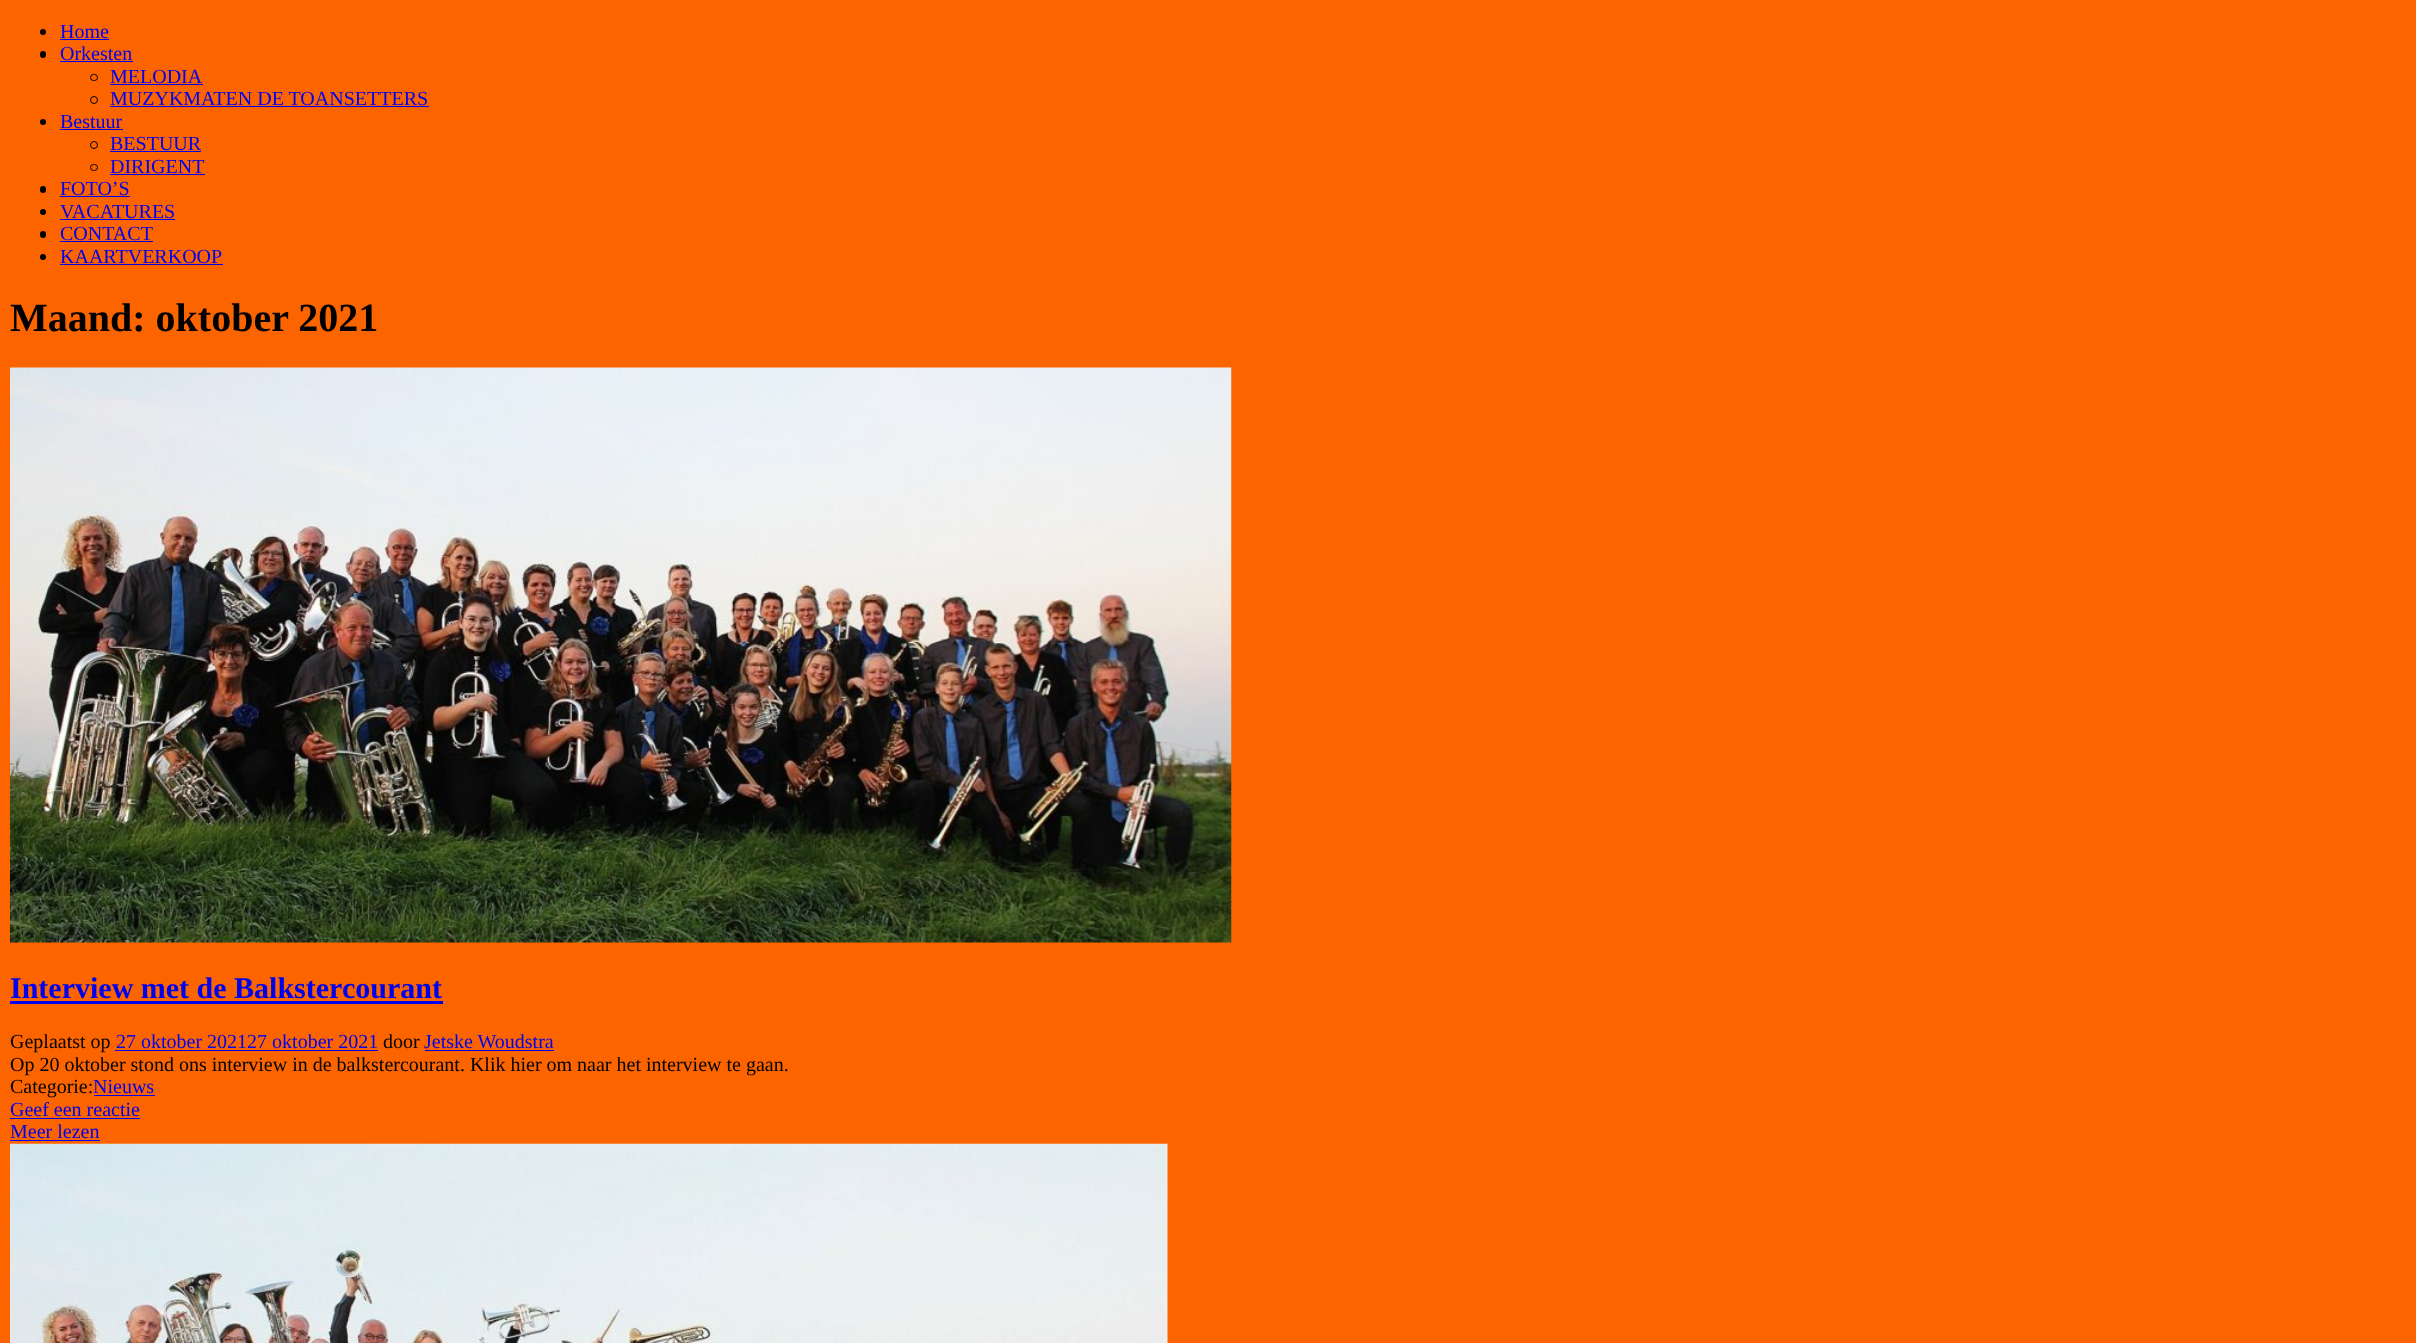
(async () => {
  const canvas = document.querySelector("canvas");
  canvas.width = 2416;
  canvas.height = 1343;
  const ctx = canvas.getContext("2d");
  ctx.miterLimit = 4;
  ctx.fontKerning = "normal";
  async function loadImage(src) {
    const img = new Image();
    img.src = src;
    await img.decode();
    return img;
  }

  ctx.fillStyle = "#fc6400";
  ctx.fillRect(0, 0, 2416, 1343);
  ctx.fillStyle = "#000000";
  ctx.beginPath();
  ctx.arc(43, 32, 3, 0, Math.PI * 2);
  ctx.fill();
  ctx.fillStyle = "#0000ee";
  ctx.fillRect(60, 39, 49, 1);
  ctx.fillStyle = "#000000";
  ctx.beginPath();
  ctx.roundRect(40, 51, 6, 7, 3);
  ctx.fill();
  ctx.fillStyle = "#0000ee";
  ctx.fillRect(60, 61, 73, 1);
  ctx.beginPath();
  ctx.roundRect(90.5, 74.5, 7, 6, 3);
  ctx.strokeStyle = "#000000";
  ctx.stroke();
  ctx.fillRect(110, 84, 93, 1);
  ctx.beginPath();
  ctx.arc(94, 100, 3.5, 0, Math.PI * 2);
  ctx.stroke();
  ctx.fillRect(110, 106, 319, 1);
  ctx.fillStyle = "#000000";
  ctx.beginPath();
  ctx.arc(43, 122, 3, 0, Math.PI * 2);
  ctx.fill();
  ctx.fillStyle = "#0000ee";
  ctx.fillRect(60, 129, 63, 1);
  ctx.beginPath();
  ctx.arc(94, 145, 3.5, 0, Math.PI * 2);
  ctx.stroke();
  ctx.fillRect(110, 151, 91, 1);
  ctx.beginPath();
  ctx.roundRect(90.5, 164.5, 7, 6, 3);
  ctx.stroke();
  ctx.fillRect(110, 174, 95, 1);
  ctx.fillStyle = "#000000";
  ctx.beginPath();
  ctx.roundRect(40, 186, 6, 7, 3);
  ctx.fill();
  ctx.fillStyle = "#0000ee";
  ctx.fillRect(60, 196, 70, 1);
  ctx.fillStyle = "#000000";
  ctx.beginPath();
  ctx.arc(43, 212, 3, 0, Math.PI * 2);
  ctx.fill();
  ctx.fillStyle = "#0000ee";
  ctx.fillRect(60, 219, 115, 1);
  ctx.fillStyle = "#000000";
  ctx.beginPath();
  ctx.roundRect(40, 231, 6, 7, 3);
  ctx.fill();
  ctx.fillStyle = "#0000ee";
  ctx.fillRect(60, 241, 93, 1);
  ctx.fillStyle = "#000000";
  ctx.beginPath();
  ctx.arc(43, 257, 3, 0, Math.PI * 2);
  ctx.fill();
  ctx.fillStyle = "#0000ee";
  ctx.fillRect(60, 264, 163, 1);
  ctx.drawImage(await loadImage("img/1.png"), 10, 367, 1222, 576);
  for (const [x, y, w, h, color] of [
    [10, 1001, 433, 3, "#0000ee"],
    [115, 1050, 263, 1, "#0000ee"],
    [425, 1050, 129, 1, "#0000ee"],
    [94, 1095, 61, 1, "#0000ee"],
    [10, 1118, 130, 1, "#0000ee"],
    [10, 1140, 90, 1, "#0000ee"],
  ]) {
    ctx.fillStyle = color;
    ctx.fillRect(x, y, w, h);
  }
  ctx.drawImage(await loadImage("img/2.png"), 10, 1143, 1158, 200);
  ctx.font = "20px Liberation Serif";
  for (const [text, x, y] of [
    ["Home", 60, 38],
    ["Orkesten", 60, 60],
    ["MELODIA", 110, 83],
    ["MUZYKMATEN DE TOANSETTERS", 110, 105],
    ["Bestuur", 60, 128],
    ["BESTUUR", 110, 150],
    ["DIRIGENT", 110, 173],
    ["FOTO’S", 60, 195],
    ["VACATURES", 60, 218],
    ["CONTACT", 60, 240],
    ["KAARTVERKOOP", 60, 263],
  ]) {
    ctx.fillText(text, x, y);
  }
  ctx.font = "bold 40px Liberation Serif";
  ctx.fillStyle = "#000000";
  ctx.fillText("Maand: oktober 2021", 10, 331);
  ctx.font = "bold 30px Liberation Serif";
  ctx.fillStyle = "#0000ee";
  ctx.fillText("Interview met de Balkstercourant", 10, 998);
  ctx.font = "20px Liberation Serif";
  ctx.fillStyle = "#000000";
  ctx.fillText("Geplaatst op", 10, 1048);
  ctx.fillStyle = "#0000ee";
  ctx.fillText("27 oktober 202127 oktober 2021", 116, 1048);
  ctx.fillStyle = "#000000";
  ctx.fillText("door", 383, 1048);
  ctx.fillStyle = "#0000ee";
  ctx.fillText("Jetske Woudstra", 424, 1048);
  ctx.fillStyle = "#000000";
  ctx.fillText("Op 20 oktober stond ons interview in de balkstercourant. Klik hier om naar het interview te gaan.", 10, 1071);
  ctx.fillText("Categorie:", 10, 1093);
  ctx.fillStyle = "#0000ee";
  for (const [text, x, y] of [
    ["Nieuws", 93, 1093],
    ["Geef een reactie", 10, 1116],
    ["Meer lezen", 10, 1138],
  ]) {
    ctx.fillText(text, x, y);
  }
})();
